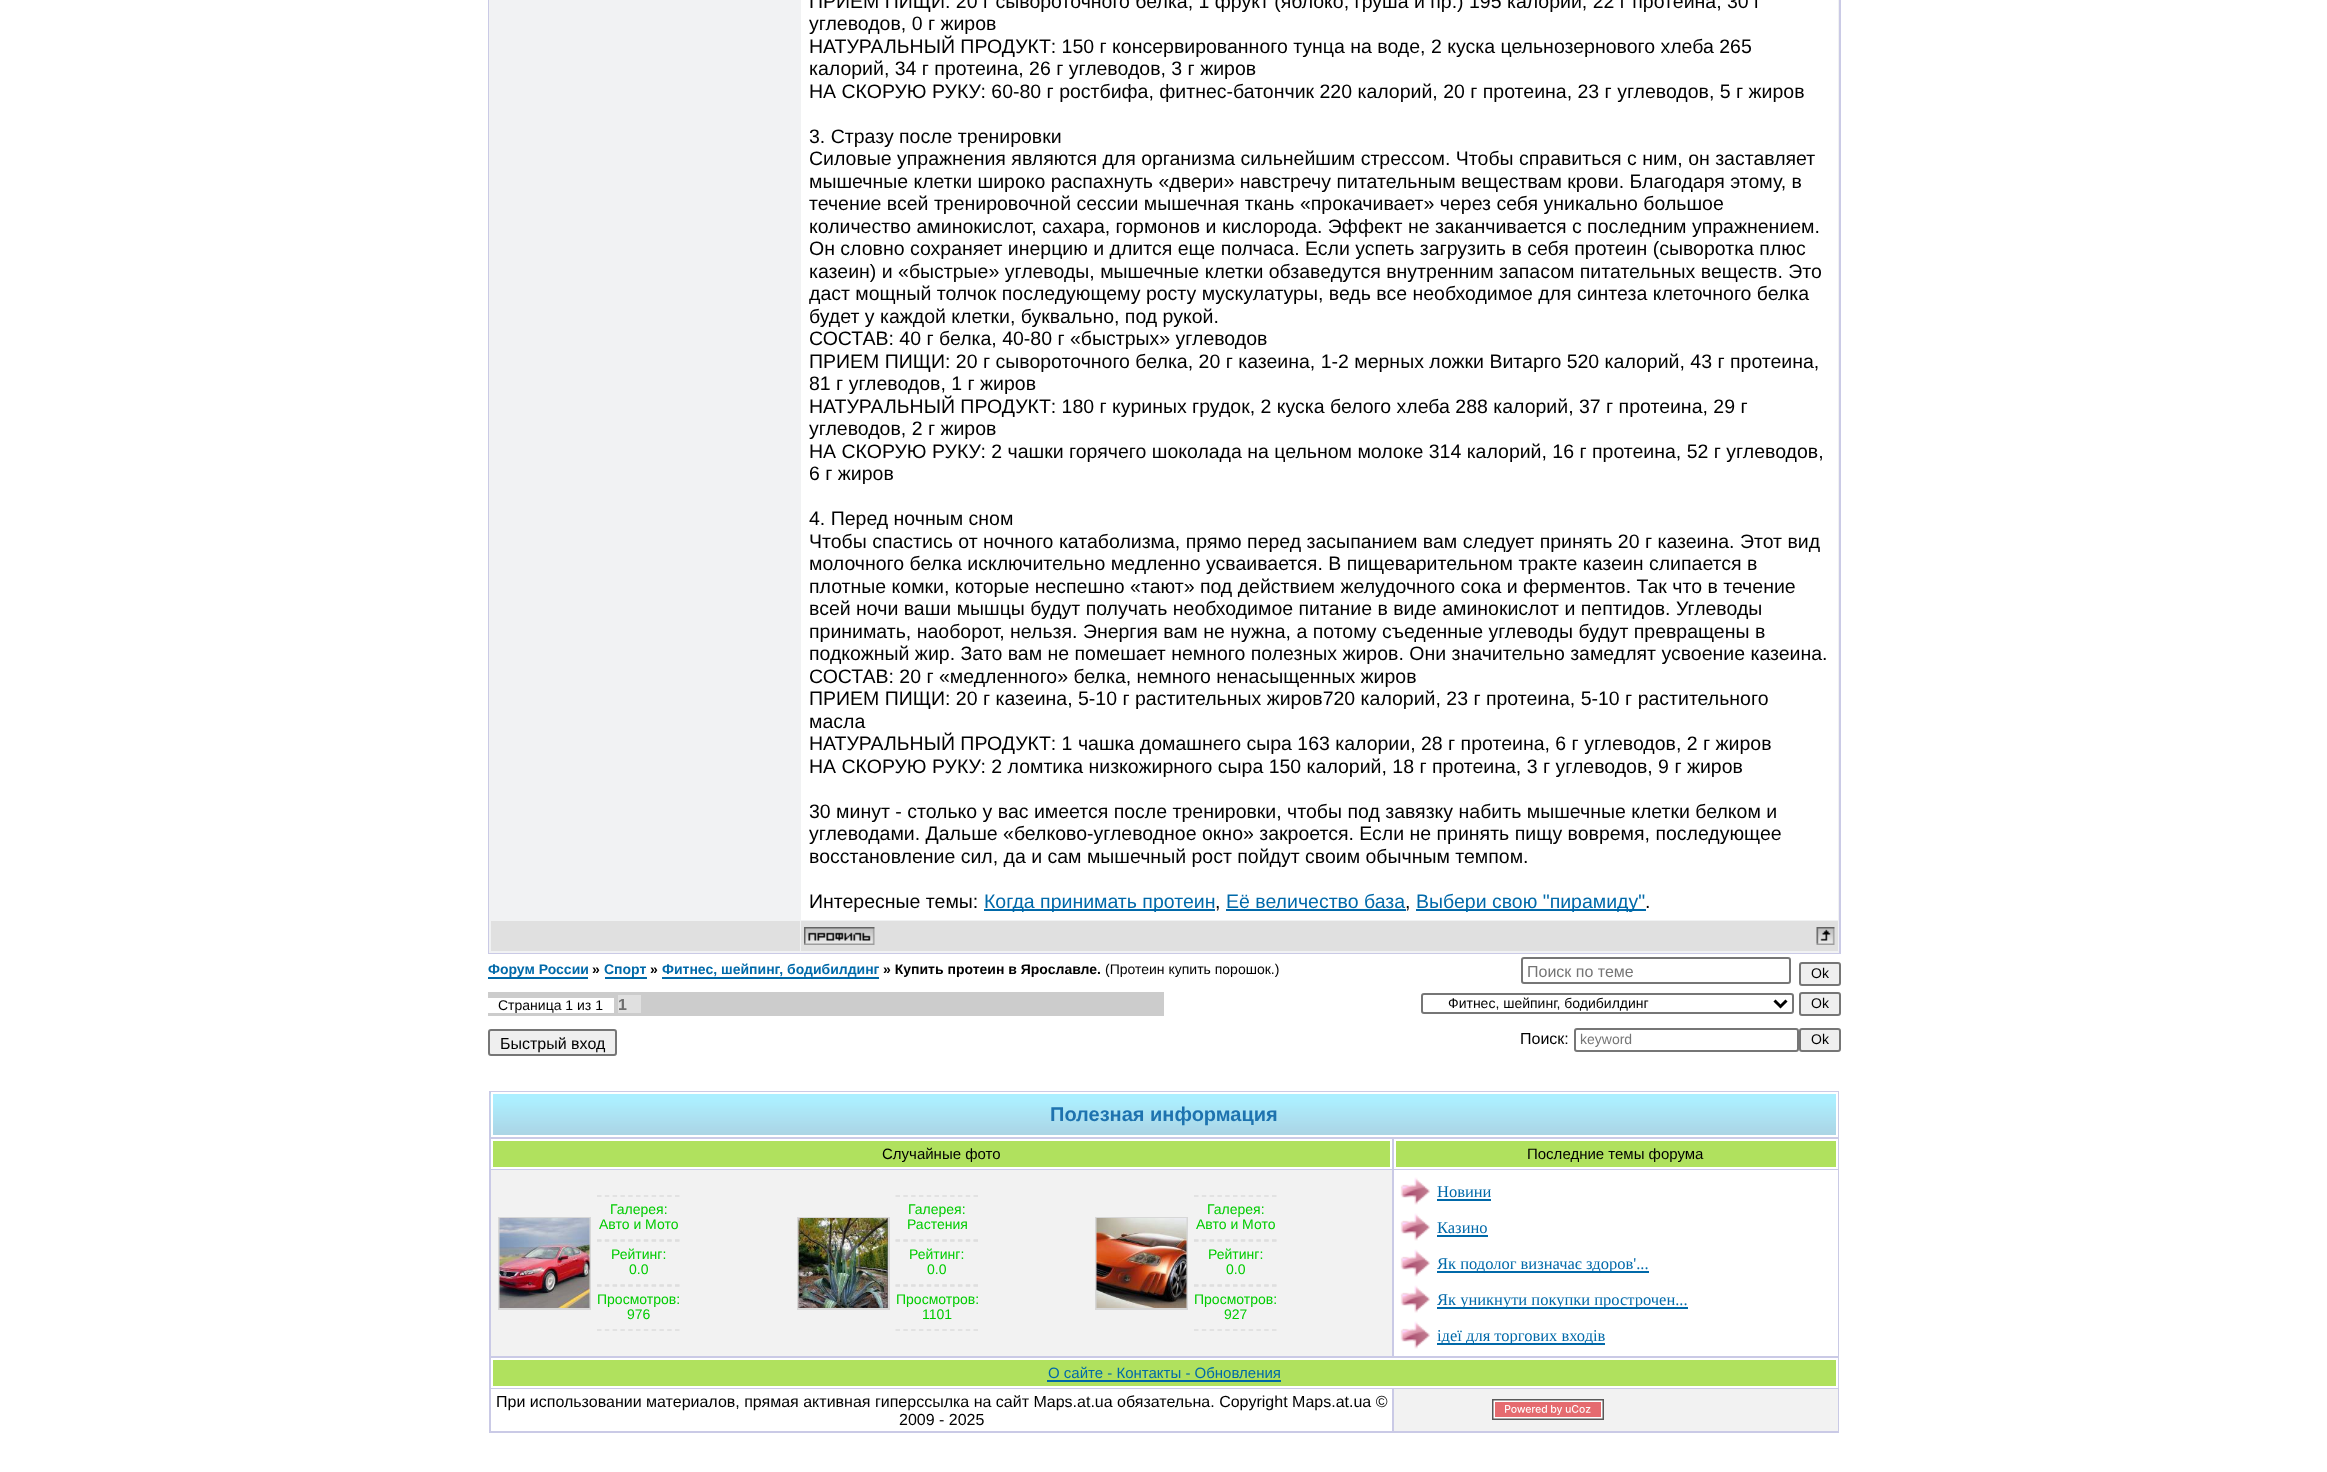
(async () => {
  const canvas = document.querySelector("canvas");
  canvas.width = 2327;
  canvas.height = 1472;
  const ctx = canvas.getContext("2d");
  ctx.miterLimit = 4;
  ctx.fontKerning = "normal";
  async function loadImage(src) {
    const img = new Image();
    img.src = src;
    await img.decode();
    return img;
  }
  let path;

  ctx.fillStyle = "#ffffff";
  ctx.fillRect(0, 0, 2327, 1472);
  for (const [x, y, w, h, color] of [
    [488, 0, 1353, 954, "#cacae6"],
    [489, 0, 1350, 953, "#f1f2f3"],
    [801, 0, 1037, 920, "#ffffff"],
    [984, 909, 231, 2, "#0069a9"],
    [1226, 909, 180, 2, "#0069a9"],
    [1416, 909, 230, 2, "#0069a9"],
    [491, 921, 309, 30, "#e0e0e0"],
    [801, 921, 1037, 30, "#e0e0e0"],
  ]) {
    ctx.fillStyle = color;
    ctx.fillRect(x, y, w, h);
  }
  ctx.drawImage(await loadImage("img/1.png"), 804, 927, 71, 18);
  ctx.drawImage(await loadImage("img/2.png"), 1816, 927, 19, 18);
  for (const [x, y, w, h, color] of [
    [488, 977, 100, 2, "#0069a9"],
    [605, 977, 42, 2, "#0069a9"],
    [662, 977, 217, 2, "#0069a9"],
  ]) {
    ctx.fillStyle = color;
    ctx.fillRect(x, y, w, h);
  }
  ctx.beginPath();
  ctx.roundRect(1522, 958, 268, 25, 2);
  ctx.strokeStyle = "#767676";
  ctx.lineWidth = 2;
  ctx.stroke();
  ctx.fillStyle = "#efefef";
  ctx.beginPath();
  ctx.roundRect(1800, 963, 40, 22, 2);
  ctx.fill();
  ctx.stroke();
  for (const [x, y, w, h, color] of [
    [488, 992, 676, 24, "#cccccc"],
    [488, 998, 126, 15, "#ffffff"],
    [618, 995, 23, 18, "#e0e0e0"],
  ]) {
    ctx.fillStyle = color;
    ctx.fillRect(x, y, w, h);
  }
  ctx.beginPath();
  ctx.roundRect(1422, 994, 371, 19, 2);
  ctx.stroke();
  path = new Path2D("M1774.5 1000.5L1780.5 1006.5L1786.5 1000.5");
  ctx.strokeStyle = "#000000";
  ctx.lineWidth = 3;
  ctx.stroke(path);
  ctx.fillStyle = "#efefef";
  ctx.beginPath();
  ctx.roundRect(1800, 993, 40, 22, 2);
  ctx.fill();
  ctx.strokeStyle = "#767676";
  ctx.lineWidth = 2;
  ctx.stroke();
  ctx.beginPath();
  ctx.roundRect(489, 1030, 127, 25, 2);
  ctx.fill();
  ctx.stroke();
  ctx.beginPath();
  ctx.roundRect(1575, 1029, 223, 22, 2);
  ctx.stroke();
  ctx.beginPath();
  ctx.roundRect(1800, 1029, 40, 22, 2);
  ctx.fill();
  ctx.stroke();
  ctx.fillStyle = "#cacae6";
  ctx.fillRect(489, 1091, 1350, 342);
  ctx.drawImage(await loadImage("img/3.png"), 490, 1092, 1346, 45);
  ctx.strokeStyle = "#ffffff";
  ctx.strokeRect(492, 1093, 1345, 43);
  ctx.fillStyle = "#b0e15e";
  ctx.beginPath();
  ctx.rect(492, 1140, 899, 28);
  ctx.fill();
  ctx.stroke();
  ctx.beginPath();
  ctx.rect(1395, 1140, 442, 28);
  ctx.fill();
  ctx.stroke();
  ctx.fillStyle = "#f2f2f2";
  ctx.fillRect(491, 1170, 901, 186);
  ctx.strokeStyle = "#d7d7d7";
  ctx.strokeRect(499, 1218, 91, 91);
  ctx.drawImage(await loadImage("img/4.png"), 499, 1218, 91, 90);
  path = new Path2D("M597 1196H679.5");
  ctx.strokeStyle = "#dddddd";
  ctx.lineWidth = 1.5;
  ctx.setLineDash([4.5, 3.3]);
  ctx.stroke(path);
  path = new Path2D("M597 1240H679.5");
  ctx.stroke(path);
  path = new Path2D("M597 1241H679.5");
  ctx.stroke(path);
  path = new Path2D("M597 1285H679.5");
  ctx.stroke(path);
  path = new Path2D("M597 1286H679.5");
  ctx.stroke(path);
  path = new Path2D("M597 1330H679.5");
  ctx.stroke(path);
  ctx.strokeStyle = "#d7d7d7";
  ctx.lineWidth = 2;
  ctx.setLineDash([]);
  ctx.strokeRect(798, 1218, 91, 91);
  ctx.drawImage(await loadImage("img/5.png"), 798, 1218, 90, 90);
  path = new Path2D("M895.5 1196H978");
  ctx.strokeStyle = "#dddddd";
  ctx.lineWidth = 1.5;
  ctx.setLineDash([4.5, 3.3]);
  ctx.stroke(path);
  path = new Path2D("M895.5 1240H978");
  ctx.stroke(path);
  path = new Path2D("M895.5 1241H978");
  ctx.stroke(path);
  path = new Path2D("M895.5 1285H978");
  ctx.stroke(path);
  path = new Path2D("M895.5 1286H978");
  ctx.stroke(path);
  path = new Path2D("M895.5 1330H978");
  ctx.stroke(path);
  ctx.strokeStyle = "#d7d7d7";
  ctx.lineWidth = 2;
  ctx.setLineDash([]);
  ctx.strokeRect(1096, 1218, 91, 91);
  ctx.drawImage(await loadImage("img/6.png"), 1096, 1218, 91, 90);
  path = new Path2D("M1194 1196H1276.5");
  ctx.strokeStyle = "#dddddd";
  ctx.lineWidth = 1.5;
  ctx.setLineDash([4.5, 3.3]);
  ctx.stroke(path);
  path = new Path2D("M1194 1240H1276.5");
  ctx.stroke(path);
  path = new Path2D("M1194 1241H1276.5");
  ctx.stroke(path);
  path = new Path2D("M1194 1285H1276.5");
  ctx.stroke(path);
  path = new Path2D("M1194 1286H1276.5");
  ctx.stroke(path);
  path = new Path2D("M1194 1330H1276.5");
  ctx.stroke(path);
  ctx.fillStyle = "#ffffff";
  ctx.fillRect(1394, 1170, 444, 186);
  ctx.drawImage(await loadImage("img/7.png"), 1400, 1177, 30, 28);
  ctx.fillStyle = "#0069a9";
  ctx.fillRect(1437, 1199, 54, 2);
  ctx.drawImage(await loadImage("img/7.png"), 1400, 1213, 30, 28);
  ctx.fillRect(1437, 1235, 51, 2);
  ctx.drawImage(await loadImage("img/7.png"), 1400, 1249, 30, 28);
  ctx.fillRect(1437, 1271, 212, 2);
  ctx.drawImage(await loadImage("img/7.png"), 1400, 1285, 30, 28);
  ctx.fillRect(1437, 1307, 251, 2);
  ctx.drawImage(await loadImage("img/7.png"), 1400, 1321, 30, 28);
  ctx.fillRect(1437, 1343, 168, 2);
  ctx.fillStyle = "#b0e15e";
  ctx.beginPath();
  ctx.rect(492, 1359, 1345, 28);
  ctx.fill();
  ctx.strokeStyle = "#ffffff";
  ctx.lineWidth = 2;
  ctx.setLineDash([]);
  ctx.stroke();
  for (const [x, y, w, h, color] of [
    [1047, 1380, 234, 2, "#0069a9"],
    [491, 1389, 901, 42, "#ffffff"],
    [1394, 1389, 444, 42, "#f2f2f2"],
  ]) {
    ctx.fillStyle = color;
    ctx.fillRect(x, y, w, h);
  }
  ctx.drawImage(await loadImage("img/8.png"), 1492, 1399, 112, 21);
  ctx.font = "19.5px Liberation Sans";
  ctx.fillStyle = "#000000";
  for (const [text, x, y] of [
    ["ПРИЕМ ПИЩИ: 20 г сывороточного белка, 1 фрукт (яблоко, груша и пр.) 195 калорий, 22 г протеина, 30 г", 809, 8],
    ["углеводов, 0 г жиров", 809, 30],
    ["НАТУРАЛЬНЫЙ ПРОДУКТ: 150 г консервированного тунца на воде, 2 куска цельнозернового хлеба 265", 809, 53],
    ["калорий, 34 г протеина, 26 г углеводов, 3 г жиров", 809, 75],
    ["НА СКОРУЮ РУКУ: 60-80 г ростбифа, фитнес-батончик 220 калорий, 20 г протеина, 23 г углеводов, 5 г жиров", 809, 98],
    ["3. Стразу после тренировки", 809, 143],
    ["Силовые упражнения являются для организма сильнейшим стрессом. Чтобы справиться с ним, он заставляет", 809, 165],
    ["мышечные клетки широко распахнуть «двери» навстречу питательным веществам крови. Благодаря этому, в", 809, 188],
    ["течение всей тренировочной сессии мышечная ткань «прокачивает» через себя уникально большое", 809, 210],
    ["количество аминокислот, сахара, гормонов и кислорода. Эффект не заканчивается с последним упражнением.", 809, 233],
    ["Он словно сохраняет инерцию и длится еще полчаса. Если успеть загрузить в себя протеин (сыворотка плюс", 809, 255],
    ["казеин) и «быстрые» углеводы, мышечные клетки обзаведутся внутренним запасом питательных веществ. Это", 809, 278],
    ["даст мощный толчок последующему росту мускулатуры, ведь все необходимое для синтеза клеточного белка", 809, 300],
    ["будет у каждой клетки, буквально, под рукой.", 809, 323],
    ["СОСТАВ: 40 г белка, 40-80 г «быстрых» углеводов", 809, 345],
    ["ПРИЕМ ПИЩИ: 20 г сывороточного белка, 20 г казеина, 1-2 мерных ложки Витарго 520 калорий, 43 г протеина,", 809, 368],
    ["81 г углеводов, 1 г жиров", 809, 390],
    ["НАТУРАЛЬНЫЙ ПРОДУКТ: 180 г куриных грудок, 2 куска белого хлеба 288 калорий, 37 г протеина, 29 г", 809, 413],
    ["углеводов, 2 г жиров", 809, 435],
    ["НА СКОРУЮ РУКУ: 2 чашки горячего шоколада на цельном молоке 314 калорий, 16 г протеина, 52 г углеводов,", 809, 458],
    ["6 г жиров", 809, 480],
    ["4. Перед ночным сном", 809, 525],
    ["Чтобы спастись от ночного катаболизма, прямо перед засыпанием вам следует принять 20 г казеина. Этот вид", 809, 548],
    ["молочного белка исключительно медленно усваивается. В пищеварительном тракте казеин слипается в", 809, 570],
    ["плотные комки, которые неспешно «тают» под действием желудочного сока и ферментов. Так что в течение", 809, 593],
    ["всей ночи ваши мышцы будут получать необходимое питание в виде аминокислот и пептидов. Углеводы", 809, 615],
    ["принимать, наоборот, нельзя. Энергия вам не нужна, а потому съеденные углеводы будут превращены в", 809, 638],
    ["подкожный жир. Зато вам не помешает немного полезных жиров. Они значительно замедлят усвоение казеина.", 809, 660],
    ["СОСТАВ: 20 г «медленного» белка, немного ненасыщенных жиров", 809, 683],
    ["ПРИЕМ ПИЩИ: 20 г казеина, 5-10 г растительных жиров720 калорий, 23 г протеина, 5-10 г растительного", 809, 705],
    ["масла", 809, 728],
    ["НАТУРАЛЬНЫЙ ПРОДУКТ: 1 чашка домашнего сыра 163 калории, 28 г протеина, 6 г углеводов, 2 г жиров", 809, 750],
    ["НА СКОРУЮ РУКУ: 2 ломтика низкожирного сыра 150 калорий, 18 г протеина, 3 г углеводов, 9 г жиров", 809, 773],
    ["30 минут - столько у вас имеется после тренировки, чтобы под завязку набить мышечные клетки белком и", 809, 818],
    ["углеводами. Дальше «белково-углеводное окно» закроется. Если не принять пищу вовремя, последующее", 809, 840],
    ["восстановление сил, да и сам мышечный рост пойдут своим обычным темпом.", 809, 863],
    ["Интересные темы:", 809, 908],
  ]) {
    ctx.fillText(text, x, y);
  }
  ctx.fillStyle = "#0069a9";
  ctx.fillText("Когда принимать протеин", 984, 908);
  ctx.fillStyle = "#000000";
  ctx.fillText(",", 1215, 908);
  ctx.fillStyle = "#0069a9";
  ctx.fillText("Её величество база", 1226, 908);
  ctx.fillStyle = "#000000";
  ctx.fillText(",", 1405, 908);
  ctx.fillStyle = "#0069a9";
  ctx.fillText("Выбери свою \"пирамиду\"", 1416, 908);
  ctx.fillStyle = "#000000";
  ctx.fillText(".", 1645, 908);
  ctx.font = "bold 14px Liberation Sans";
  ctx.fillStyle = "#0069a9";
  ctx.fillText("Форум России", 488, 974);
  ctx.fillStyle = "#000000";
  ctx.fillText("»", 592, 974);
  ctx.fillStyle = "#0069a9";
  ctx.fillText("Спорт", 604, 974);
  ctx.fillStyle = "#000000";
  ctx.fillText("»", 650, 974);
  ctx.fillStyle = "#0069a9";
  ctx.fillText("Фитнес, шейпинг, бодибилдинг", 662, 974);
  ctx.fillStyle = "#000000";
  ctx.fillText("» Купить протеин в Ярославле.", 883, 974);
  ctx.font = "14px Liberation Sans";
  ctx.fillText("(Протеин купить порошок.)", 1105, 974);
  ctx.font = "16px Liberation Sans";
  ctx.fillStyle = "#757575";
  ctx.fillText("Поиск по теме", 1527, 977);
  ctx.font = "14px Liberation Sans";
  ctx.fillStyle = "#000000";
  ctx.fillText("Ok", 1811, 978);
  ctx.fillText("Страница 1 из 1", 498, 1010);
  ctx.font = "bold 16px Liberation Sans";
  ctx.fillStyle = "#6e6e6e";
  ctx.fillText("1", 618, 1010);
  ctx.font = "14px Liberation Sans";
  ctx.fillStyle = "#000000";
  ctx.fillText("Фитнес, шейпинг, бодибилдинг", 1448, 1008);
  ctx.fillText("Ok", 1811, 1008);
  ctx.font = "16px Liberation Sans";
  ctx.fillText("Быстрый вход", 500, 1049);
  ctx.fillText("Поиск:", 1520, 1044);
  ctx.font = "14px Liberation Sans";
  ctx.fillStyle = "#757575";
  ctx.fillText("keyword", 1580, 1044);
  ctx.fillStyle = "#000000";
  ctx.fillText("Ok", 1811, 1044);
  ctx.font = "bold 20px Liberation Sans";
  ctx.fillStyle = "#1e73af";
  ctx.fillText("Полезная информация", 1050, 1121);
  ctx.font = "15px Liberation Sans";
  ctx.fillStyle = "#000000";
  ctx.fillText("Случайные фото", 882, 1159);
  ctx.fillText("Последние темы форума", 1527, 1159);
  ctx.font = "14px Liberation Sans";
  ctx.fillStyle = "#00cc00";
  for (const [text, x, y] of [
    ["Галерея:", 610, 1214],
    ["Авто и Мото", 599, 1229],
    ["Рейтинг:", 611, 1259],
    ["0.0", 629, 1274],
    ["Просмотров:", 597, 1304],
    ["976", 627, 1319],
    ["Галерея:", 908, 1214],
    ["Растения", 907, 1229],
    ["Рейтинг:", 909, 1259],
    ["0.0", 927, 1274],
    ["Просмотров:", 896, 1304],
    ["1101", 922, 1319],
    ["Галерея:", 1207, 1214],
    ["Авто и Мото", 1196, 1229],
    ["Рейтинг:", 1208, 1259],
    ["0.0", 1226, 1274],
    ["Просмотров:", 1194, 1304],
    ["927", 1224, 1319],
  ]) {
    ctx.fillText(text, x, y);
  }
  ctx.font = "16.5px Liberation Serif";
  ctx.fillStyle = "#0069a9";
  for (const [text, x, y] of [
    ["Новини", 1437, 1197],
    ["Казино", 1437, 1233],
    ["Як подолог визначає здоров'...", 1437, 1269],
    ["Як уникнути покупки прострочен...", 1437, 1305],
    ["ідеї для торгових входів", 1437, 1341],
  ]) {
    ctx.fillText(text, x, y);
  }
  ctx.font = "15px Liberation Sans";
  ctx.fillText("О сайте - Контакты - Обновления", 1048, 1378);
  ctx.font = "16px Liberation Sans";
  ctx.fillStyle = "#000000";
  ctx.fillText("При использовании материалов, прямая активная гиперссылка на сайт Maps.at.ua обязательна. Copyright Maps.at.ua ©", 496, 1407);
  ctx.fillText("2009 - 2025", 899, 1425);
})();
